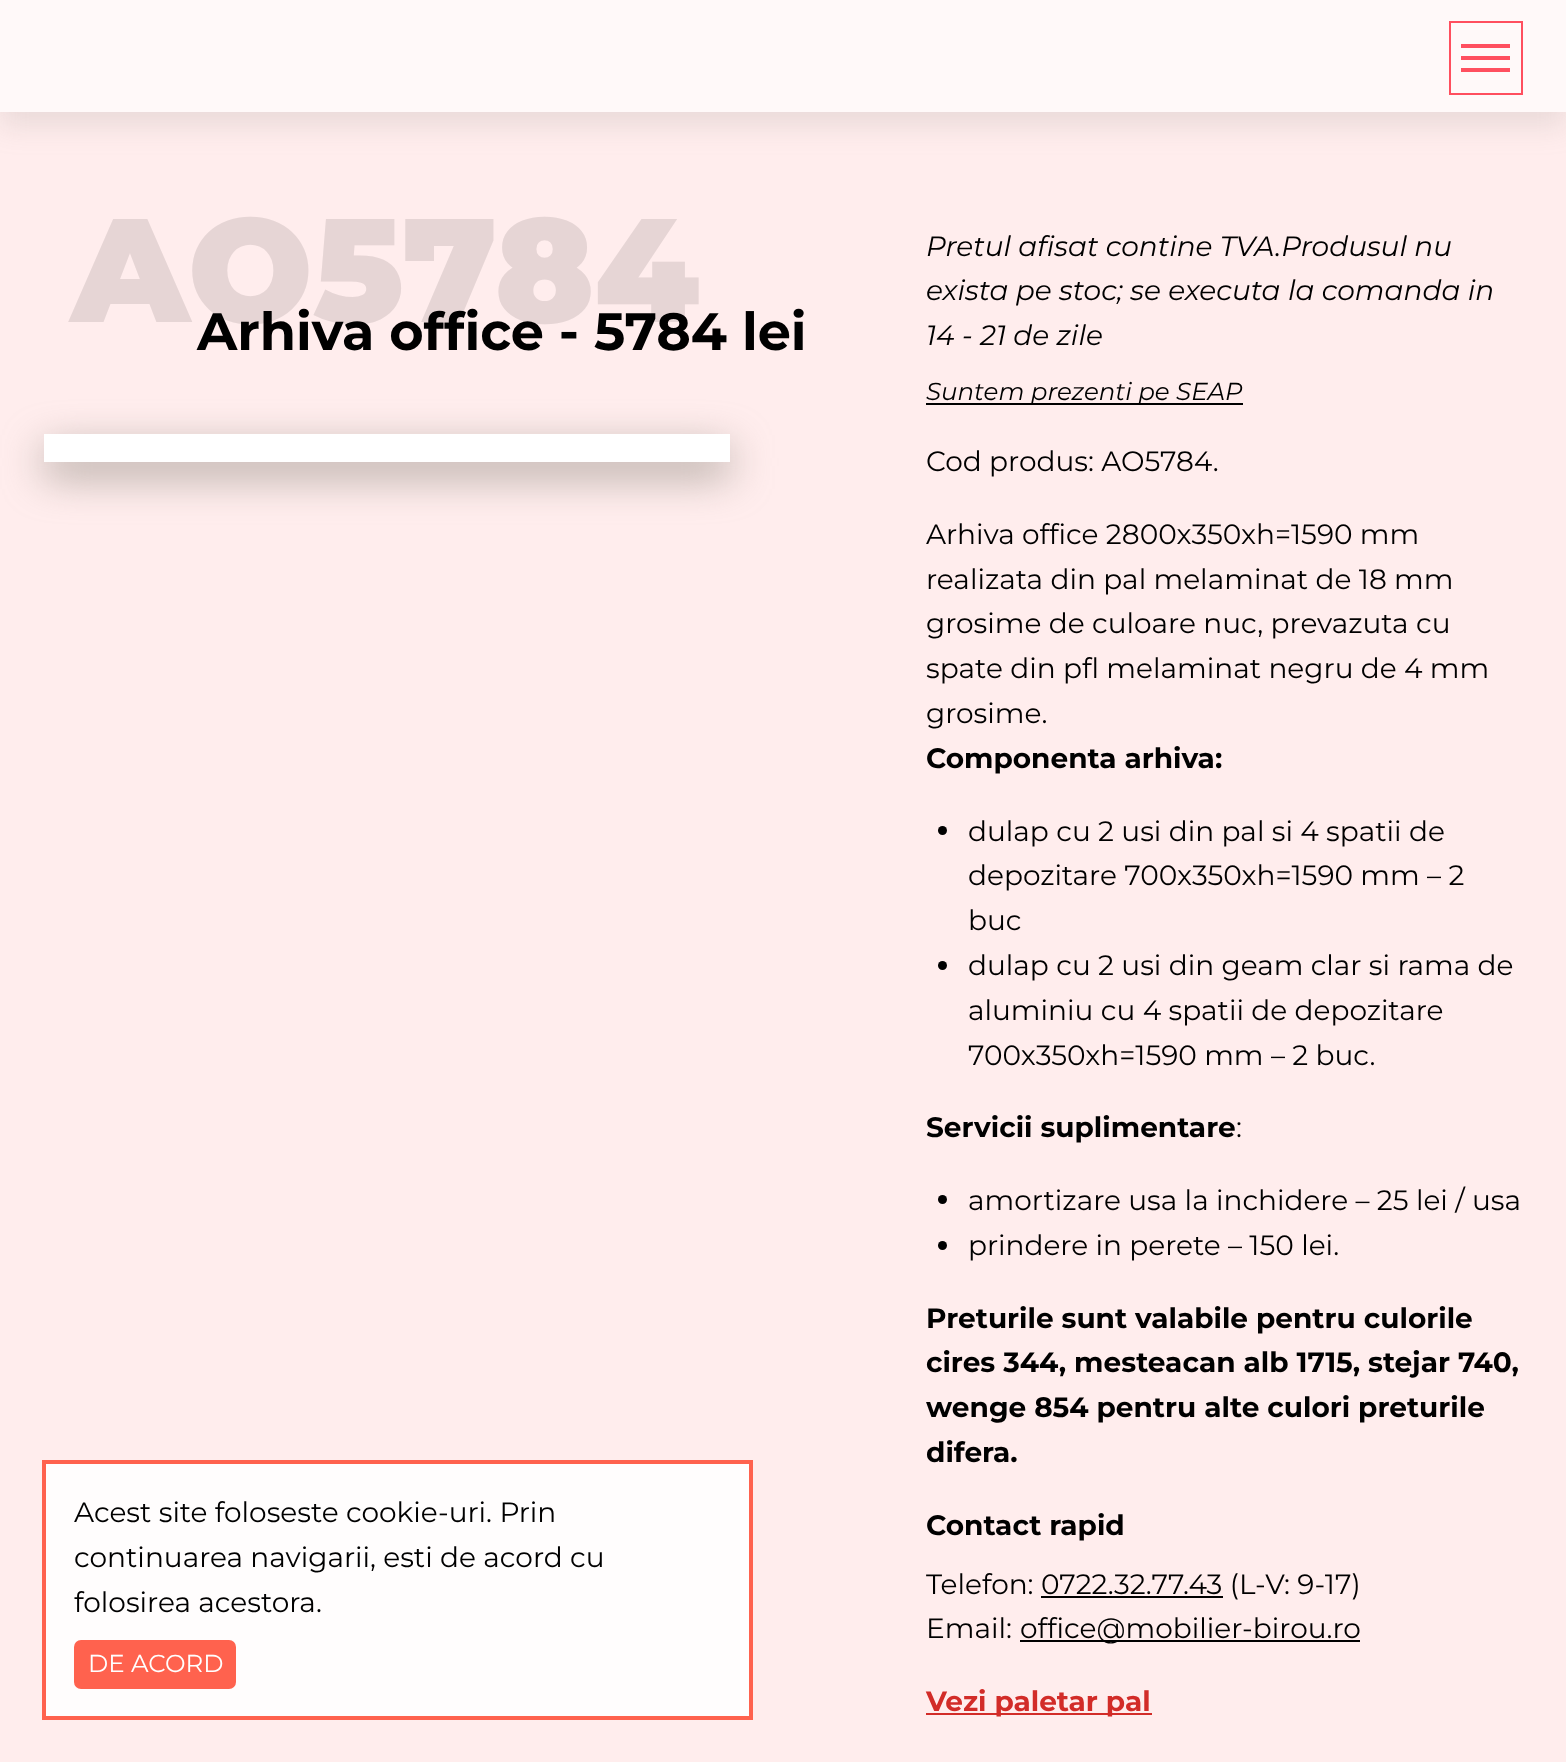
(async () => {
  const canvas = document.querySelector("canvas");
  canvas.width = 1566;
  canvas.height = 1762;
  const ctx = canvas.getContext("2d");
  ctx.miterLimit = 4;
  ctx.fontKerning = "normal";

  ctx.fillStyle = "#ffeded";
  ctx.fillRect(0, 0, 1566, 1762);
  ctx.fillStyle = "rgba(152, 146, 138, 0.2)";
  ctx.filter = "blur(14px)";
  ctx.beginPath();
  ctx.rect(0, 14, 1566, 112);
  ctx.fill();
  ctx.filter = "none";
  ctx.fillStyle = "#fff9f9";
  ctx.fillRect(0, 0, 1566, 112);
  ctx.strokeStyle = "#ff4f5f";
  ctx.lineWidth = 2;
  ctx.strokeRect(1450, 22, 72, 72);
  for (const [x, y, w, h, color] of [
    [1461, 56, 49, 4, "#ff4f5f"],
    [1461, 44, 49, 4, "#ff4f5f"],
    [1461, 68, 49, 4, "#ff4f5f"],
  ]) {
    ctx.fillStyle = color;
    ctx.fillRect(x, y, w, h);
  }
  ctx.fillStyle = "rgba(152, 146, 138, 0.8)";
  ctx.filter = "blur(21px)";
  ctx.beginPath();
  ctx.rect(44, 448, 686, 28);
  ctx.fill();
  ctx.filter = "none";
  ctx.fillStyle = "#ffffff";
  ctx.fillRect(44, 434, 686, 28);
  ctx.fillStyle = "#000000";
  ctx.fillRect(926, 403, 317, 2);
  ctx.beginPath();
  ctx.arc(942.5, 830.5, 4.5, 0, Math.PI * 2);
  ctx.fill();
  ctx.beginPath();
  ctx.arc(942.5, 965.5, 4.5, 0, Math.PI * 2);
  ctx.fill();
  ctx.beginPath();
  ctx.arc(942.5, 1199.5, 4.5, 0, Math.PI * 2);
  ctx.fill();
  ctx.beginPath();
  ctx.arc(942.5, 1245.5, 4.5, 0, Math.PI * 2);
  ctx.fill();
  for (const [x, y, w, h, color] of [
    [1041, 1596, 182, 2, "#000000"],
    [1020, 1640, 340, 2, "#000000"],
    [926, 1713, 226, 2, "#d22c28"],
  ]) {
    ctx.fillStyle = color;
    ctx.fillRect(x, y, w, h);
  }
  ctx.fillStyle = "#fffdfd";
  ctx.beginPath();
  ctx.rect(44, 1462, 707, 256);
  ctx.fill();
  ctx.strokeStyle = "#ff624e";
  ctx.lineWidth = 4;
  ctx.stroke();
  ctx.fillStyle = "#ff624e";
  ctx.beginPath();
  ctx.roundRect(74, 1640, 162, 49, 7);
  ctx.fill();
  ctx.font = "900 147px Montserrat";
  ctx.fillStyle = "#e6d5d5";
  ctx.fillText("AO5784", 71, 322);
  ctx.font = "bold 52.5px Montserrat";
  ctx.fillStyle = "#000000";
  ctx.fillText("Arhiva office - 5784 lei", 197, 350);
  ctx.font = "italic 28px Montserrat";
  for (const [text, x, y] of [
    ["Pretul afisat contine TVA.Produsul nu", 926, 256],
    ["exista pe stoc; se executa la comanda in", 926, 300],
    ["14 - 21 de zile", 926, 345],
  ]) {
    ctx.fillText(text, x, y);
  }
  ctx.font = "italic 24.5px Montserrat";
  ctx.fillText("Suntem prezenti pe SEAP", 926, 400);
  ctx.font = "28px Montserrat";
  for (const [text, x, y] of [
    ["Cod produs: AO5784.", 926, 471],
    ["Arhiva office 2800x350xh=1590 mm", 926, 544],
    ["realizata din pal melaminat de 18 mm", 926, 589],
    ["grosime de culoare nuc, prevazuta cu", 926, 633],
    ["spate din pfl melaminat negru de 4 mm", 926, 678],
    ["grosime.", 926, 723],
  ]) {
    ctx.fillText(text, x, y);
  }
  ctx.font = "bold 28px Montserrat";
  ctx.fillText("Componenta arhiva:", 926, 768);
  ctx.font = "28px Montserrat";
  for (const [text, x, y] of [
    ["dulap cu 2 usi din pal si 4 spatii de", 968, 841],
    ["depozitare 700x350xh=1590 mm – 2", 968, 885],
    ["buc", 968, 930],
    ["dulap cu 2 usi din geam clar si rama de", 968, 975],
    ["aluminiu cu 4 spatii de depozitare", 968, 1020],
    ["700x350xh=1590 mm – 2 buc.", 968, 1065],
  ]) {
    ctx.fillText(text, x, y);
  }
  ctx.font = "bold 28px Montserrat";
  ctx.fillText("Servicii suplimentare", 926, 1137);
  ctx.font = "28px Montserrat";
  for (const [text, x, y] of [
    [":", 1236, 1137],
    ["amortizare usa la inchidere – 25 lei / usa", 968, 1210],
    ["prindere in perete – 150 lei.", 968, 1255],
  ]) {
    ctx.fillText(text, x, y);
  }
  ctx.font = "bold 28px Montserrat";
  for (const [text, x, y] of [
    ["Preturile sunt valabile pentru culorile", 926, 1328],
    ["cires 344, mesteacan alb 1715, stejar 740,", 926, 1372],
    ["wenge 854 pentru alte culori preturile", 926, 1417],
    ["difera.", 926, 1462],
    ["Contact rapid", 926, 1535],
  ]) {
    ctx.fillText(text, x, y);
  }
  ctx.font = "28px Montserrat";
  for (const [text, x, y] of [
    ["Telefon: 0722.32.77.43 (L-V: 9-17)", 926, 1594],
    ["Email:", 926, 1638],
    ["office@mobilier-birou.ro", 1020, 1638],
  ]) {
    ctx.fillText(text, x, y);
  }
  ctx.font = "bold 28px Montserrat";
  ctx.fillStyle = "#d22c28";
  ctx.fillText("Vezi paletar pal", 926, 1711);
  ctx.font = "28px Montserrat";
  ctx.fillStyle = "#000000";
  for (const [text, x, y] of [
    ["Acest site foloseste cookie-uri. Prin", 74, 1522],
    ["continuarea navigarii, esti de acord cu", 74, 1567],
    ["folosirea acestora.", 74, 1612],
  ]) {
    ctx.fillText(text, x, y);
  }
  ctx.font = "24.5px Montserrat";
  ctx.fillStyle = "#ffffff";
  ctx.fillText("DE ACORD", 88, 1672);
})();
